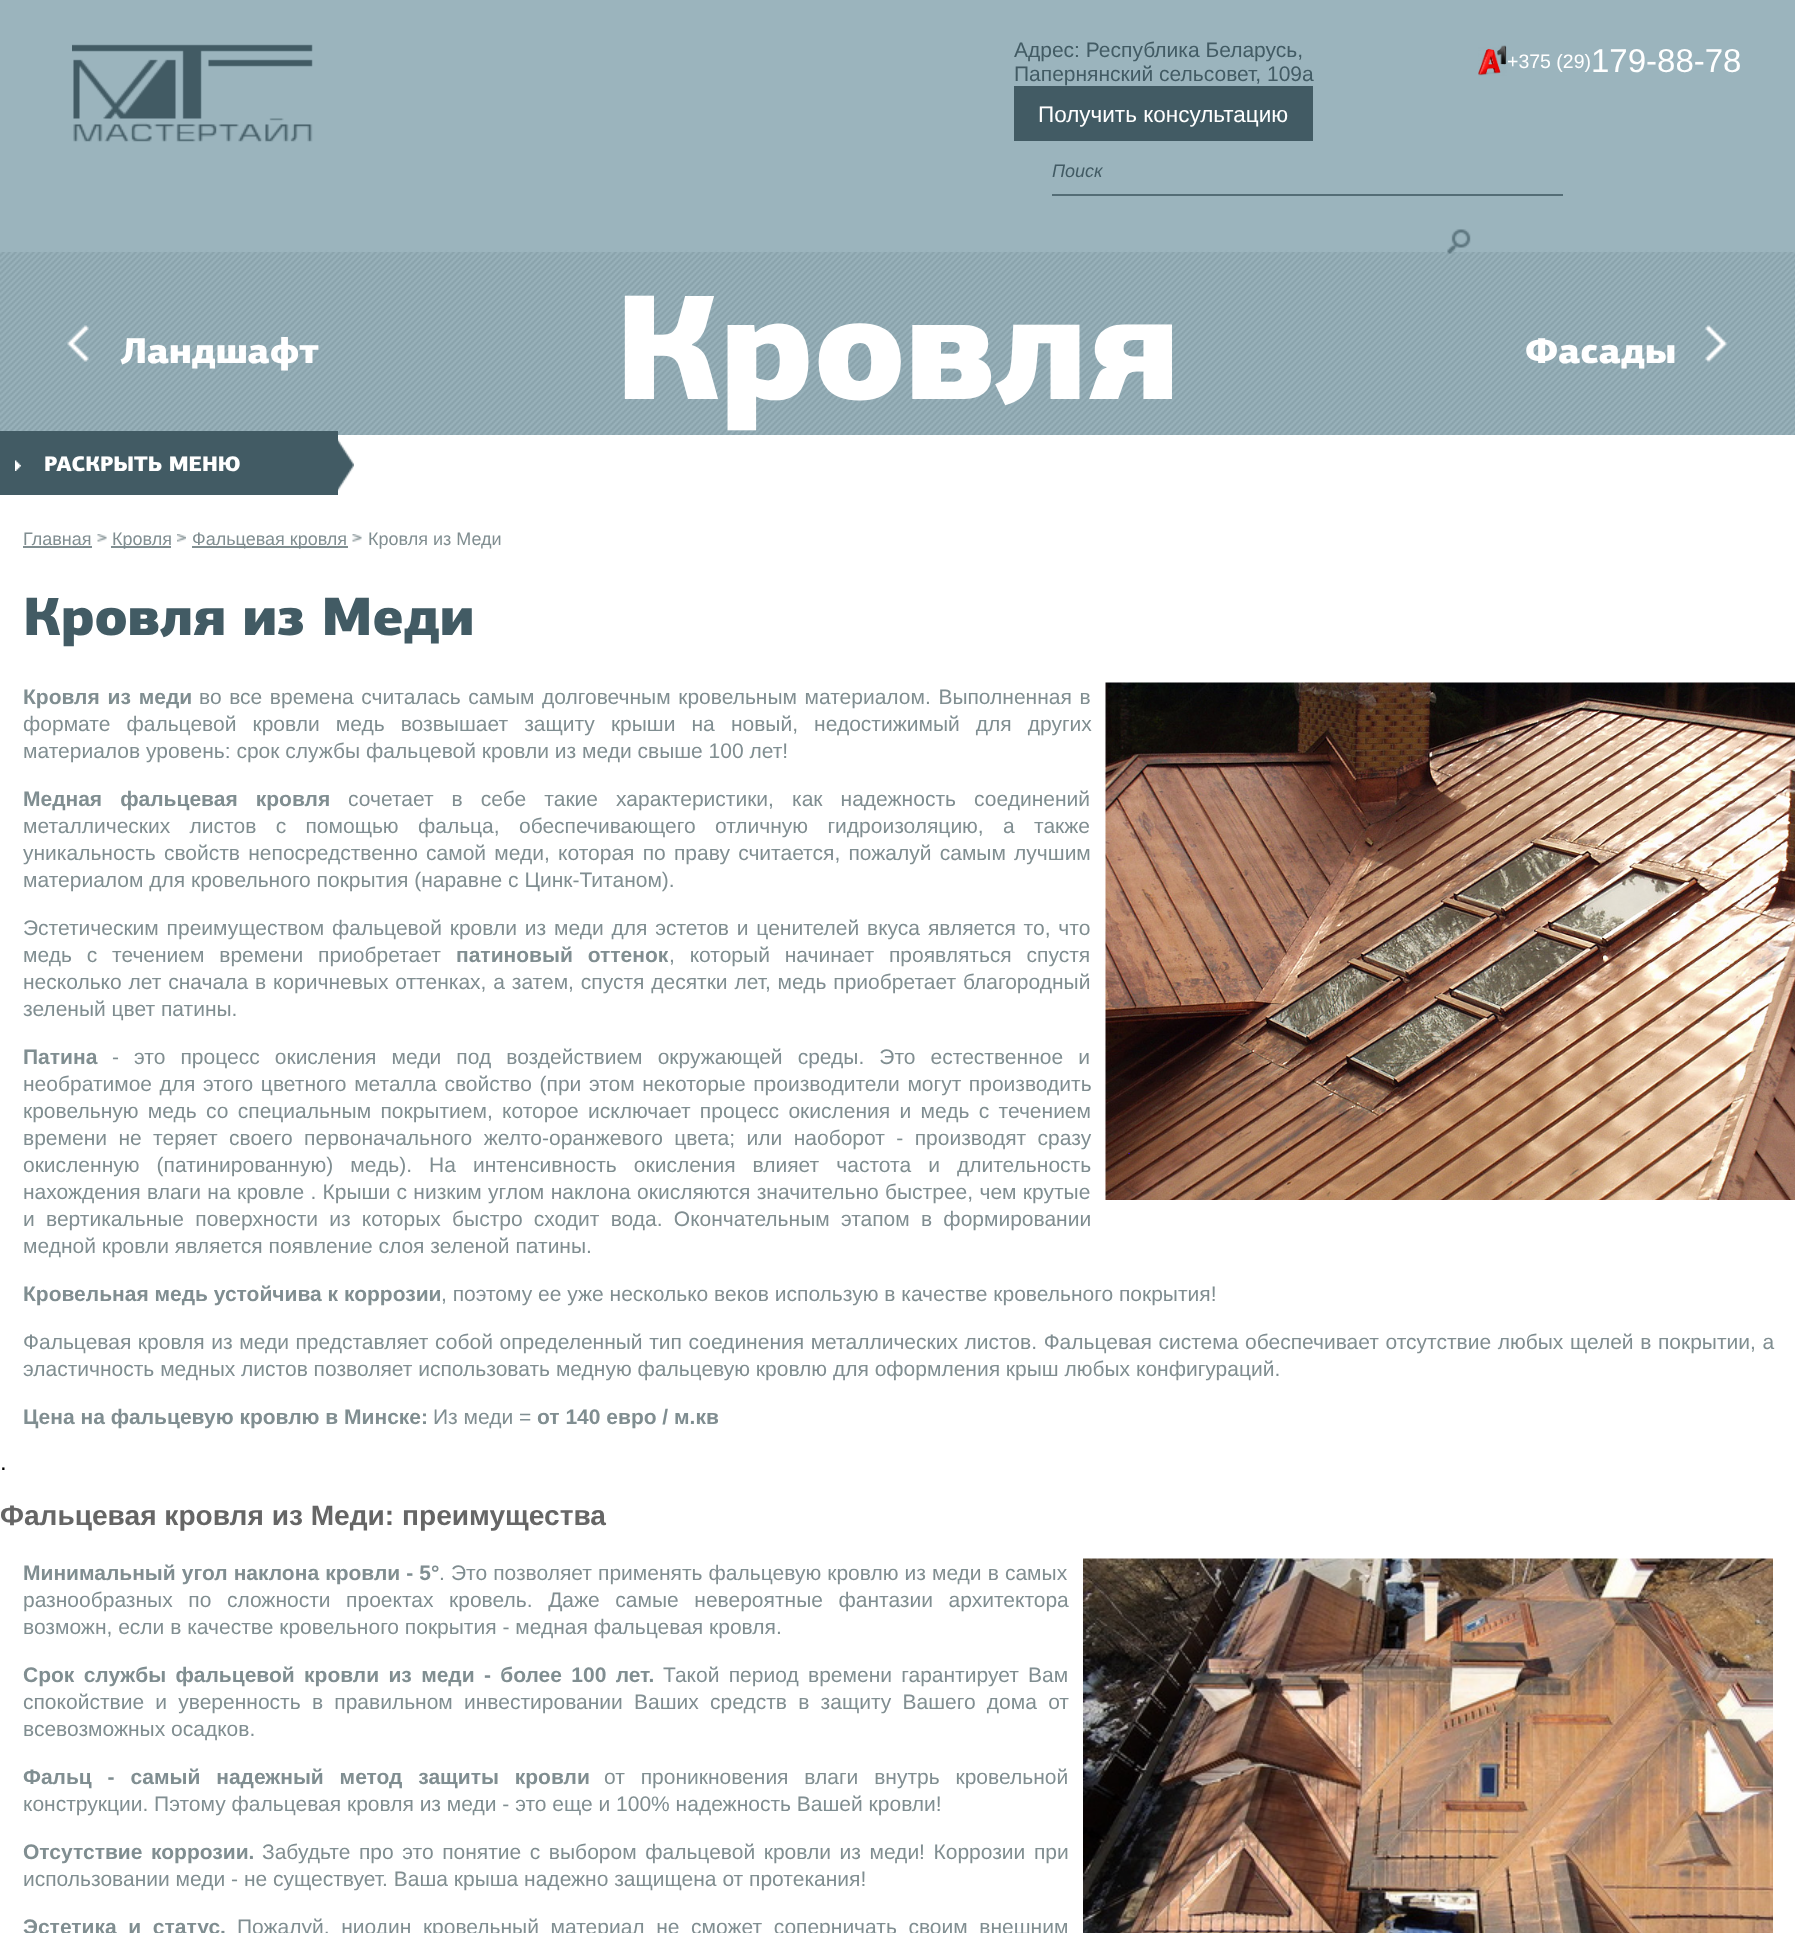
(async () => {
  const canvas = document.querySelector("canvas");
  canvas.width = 1795;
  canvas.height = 1933;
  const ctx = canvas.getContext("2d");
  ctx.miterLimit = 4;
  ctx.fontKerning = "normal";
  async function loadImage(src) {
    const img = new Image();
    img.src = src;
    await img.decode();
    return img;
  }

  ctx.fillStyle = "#ffffff";
  ctx.fillRect(0, 0, 1795, 1933);
  ctx.fillStyle = "#9bb4bd";
  ctx.fillRect(0, 0, 1795, 252);
  ctx.drawImage(await loadImage("img/1.png"), 72, 44, 241, 98);
  ctx.drawImage(await loadImage("img/2.png"), 1478, 45, 29, 31);
  ctx.fillStyle = "#425b64";
  ctx.fillRect(1014, 86, 299, 55);
  ctx.fillStyle = "#546d76";
  ctx.fillRect(1052, 194, 511, 2);
  ctx.drawImage(await loadImage("img/4.png"), 0, 252, 1795, 183);
  ctx.drawImage(await loadImage("img/3.png"), 1447, 229, 24, 25);
  ctx.drawImage(await loadImage("img/5.png"), 67, 325, 22, 37);
  ctx.drawImage(await loadImage("img/6.png"), 1705, 325, 22, 37);
  ctx.fillStyle = "#425b64";
  ctx.fillRect(0, 431, 338, 64);
  ctx.drawImage(await loadImage("img/7.png"), 15, 460, 6, 11);
  ctx.drawImage(await loadImage("img/8.png"), 338, 439, 16, 52);
  ctx.fillStyle = "#808e91";
  ctx.fillRect(23, 546, 69, 2);
  ctx.drawImage(await loadImage("img/9.png"), 97, 534, 10, 8);
  ctx.fillRect(111, 546, 60, 2);
  ctx.drawImage(await loadImage("img/10.png"), 177, 534, 9, 8);
  ctx.fillRect(192, 546, 156, 2);
  ctx.drawImage(await loadImage("img/11.png"), 352, 534, 10, 8);
  ctx.drawImage(await loadImage("img/12.png"), 1105, 682, 690, 518);
  ctx.drawImage(await loadImage("img/13.png"), 1083, 1558, 690, 375);
  ctx.font = "21px Liberation Sans";
  ctx.fillStyle = "#425b64";
  ctx.fillText("Адрес: Республика Беларусь,", 1014, 57);
  ctx.fillText("Папернянский сельсовет, 109а", 1014, 81);
  ctx.font = "19.5px Liberation Sans";
  ctx.fillStyle = "#ffffff";
  ctx.fillText("+375 (29)", 1507, 68);
  ctx.font = "33px Liberation Sans";
  ctx.fillText("179-88-78", 1591, 72);
  ctx.font = "22.5px Liberation Sans";
  ctx.fillText("Получить консультацию", 1038, 122);
  ctx.font = "italic 18px Liberation Sans";
  ctx.fillStyle = "#425b64";
  ctx.fillText("Поиск", 1052, 177);
  ctx.font = "900 36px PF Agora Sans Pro";
  ctx.fillStyle = "#ffffff";
  ctx.fillText("Ландшафт", 120, 363);
  ctx.font = "900 150px PF Agora Sans Pro";
  ctx.fillText("Кровля", 615, 399);
  ctx.font = "900 36px PF Agora Sans Pro";
  ctx.fillText("Фасады", 1525, 363);
  ctx.font = "900 21px PF Agora Sans Pro";
  ctx.fillText("РАСКРЫТЬ МЕНЮ", 44, 471);
  ctx.font = "18px Liberation Sans";
  ctx.fillStyle = "#808e91";
  for (const [text, x, y] of [
    ["Главная", 23, 545],
    ["Кровля", 112, 545],
    ["Фальцевая кровля", 192, 545],
    ["Кровля из Меди", 368, 545],
  ]) {
    ctx.fillText(text, x, y);
  }
  ctx.font = "900 54px PF Agora Sans Pro";
  ctx.fillStyle = "#425b64";
  ctx.fillText("Кровля из Меди", 23, 635);
  ctx.wordSpacing = "2px";
  ctx.font = "bold 21px Liberation Sans";
  ctx.fillStyle = "#808e91";
  ctx.fillText("Кровля из меди", 23, 704);
  ctx.wordSpacing = "1.75px";
  ctx.font = "21px Liberation Sans";
  ctx.fillText("во все времена считалась самым долговечным кровельным материалом. Выполненная в", 199, 704);
  ctx.wordSpacing = "10.25px";
  ctx.fillText("формате фальцевой кровли медь возвышает защиту крыши на новый, недостижимый для других", 23, 731);
  ctx.wordSpacing = "0px";
  ctx.fillText("материалов уровень: срок службы фальцевой кровли из меди свыше 100 лет!", 23, 758);
  ctx.wordSpacing = "12.25px";
  ctx.font = "bold 21px Liberation Sans";
  ctx.fillText("Медная фальцевая кровля", 23, 806);
  ctx.font = "21px Liberation Sans";
  ctx.fillText("сочетает в себе такие характеристики, как надежность соединений", 348, 806);
  ctx.wordSpacing = "13.5px";
  ctx.fillText("металлических листов с помощью фальца, обеспечивающего отличную гидроизоляцию, а также", 23, 833);
  ctx.wordSpacing = "2.4px";
  ctx.fillText("уникальность свойств непосредственно самой меди, которая по праву считается, пожалуй самым лучшим", 23, 860);
  ctx.wordSpacing = "0px";
  ctx.fillText("материалом для кровельного покрытия (наравне с Цинк-Титаном).", 23, 887);
  ctx.wordSpacing = "2px";
  ctx.fillText("Эстетическим преимуществом фальцевой кровли из меди для эстетов и ценителей вкуса является то, что", 23, 935);
  ctx.wordSpacing = "9px";
  ctx.fillText("медь с течением времени приобретает", 23, 962);
  ctx.font = "bold 21px Liberation Sans";
  ctx.fillText("патиновый оттенок", 456, 962);
  ctx.font = "21px Liberation Sans";
  ctx.fillText(", который начинает проявляться спустя", 669, 962);
  ctx.wordSpacing = "1px";
  ctx.fillText("несколько лет сначала в коричневых оттенках, а затем, спустя десятки лет, медь приобретает благородный", 23, 989);
  ctx.wordSpacing = "0px";
  ctx.fillText("зеленый цвет патины.", 23, 1016);
  ctx.font = "bold 21px Liberation Sans";
  ctx.fillText("Патина", 23, 1064);
  ctx.wordSpacing = "9.25px";
  ctx.font = "21px Liberation Sans";
  ctx.fillText("- это процесс окисления меди под воздействием окружающей среды. Это естественное и", 112, 1064);
  ctx.wordSpacing = "1.75px";
  ctx.fillText("необратимое для этого цветного металла свойство (при этом некоторые производители могут производить", 23, 1091);
  ctx.wordSpacing = "3.5px";
  ctx.fillText("кровельную медь со специальным покрытием, которое исключает процесс окисления и медь с течением", 23, 1118);
  ctx.wordSpacing = "5.6px";
  ctx.fillText("времени не теряет своего первоначального желто-оранжевого цвета; или наоборот - производят сразу", 23, 1145);
  ctx.wordSpacing = "11.25px";
  ctx.fillText("окисленную (патинированную) медь). На интенсивность окисления влияет частота и длительность", 23, 1172);
  ctx.wordSpacing = "0.5px";
  ctx.fillText("нахождения влаги на кровле . Крыши с низким углом наклона окисляются значительно быстрее, чем крутые", 23, 1199);
  ctx.wordSpacing = "5.4px";
  ctx.fillText("и вертикальные поверхности из которых быстро сходит вода. Окончательным этапом в формировании", 23, 1226);
  ctx.wordSpacing = "0px";
  ctx.fillText("медной кровли является появление слоя зеленой патины.", 23, 1253);
  ctx.font = "bold 21px Liberation Sans";
  ctx.fillText("Кровельная медь устойчива к коррозии", 23, 1301);
  ctx.font = "21px Liberation Sans";
  ctx.fillText(", поэтому ее уже несколько веков использую в качестве кровельного покрытия!", 441, 1301);
  ctx.wordSpacing = "0.75px";
  ctx.fillText("Фальцевая кровля из меди представляет собой определенный тип соединения металлических листов. Фальцевая система обеспечивает отсутствие любых щелей в покрытии, а", 23, 1349);
  ctx.wordSpacing = "0px";
  ctx.fillText("эластичность медных листов позволяет использовать медную фальцевую кровлю для оформления крыш любых конфигураций.", 23, 1376);
  ctx.font = "bold 21px Liberation Sans";
  ctx.fillText("Цена на фальцевую кровлю в Минске:", 23, 1424);
  ctx.font = "21px Liberation Sans";
  ctx.fillText("Из меди =", 433, 1424);
  ctx.font = "bold 21px Liberation Sans";
  ctx.fillText("от 140 евро / м.кв", 537, 1424);
  ctx.font = "24px Liberation Sans";
  ctx.fillStyle = "#000000";
  ctx.fillText(".", 0, 1470);
  ctx.font = "bold 28.1px Liberation Sans";
  ctx.fillStyle = "#666666";
  ctx.fillText("Фальцевая кровля из Меди: преимущества", 0, 1525);
  ctx.wordSpacing = "0.25px";
  ctx.font = "bold 21px Liberation Sans";
  ctx.fillStyle = "#808e91";
  ctx.fillText("Минимальный угол наклона кровли - 5°", 23, 1580);
  ctx.font = "21px Liberation Sans";
  ctx.fillText(". Это позволяет применять фальцевую кровлю из меди в самых", 439, 1580);
  ctx.wordSpacing = "9.75px";
  ctx.fillText("разнообразных по сложности проектах кровель. Даже самые невероятные фантазии архитектора", 23, 1607);
  ctx.wordSpacing = "0px";
  ctx.fillText("возможн, если в качестве кровельного покрытия - медная фальцевая кровля.", 23, 1634);
  ctx.wordSpacing = "3.5px";
  ctx.font = "bold 21px Liberation Sans";
  ctx.fillText("Срок службы фальцевой кровли из меди - более 100 лет.", 23, 1682);
  ctx.font = "21px Liberation Sans";
  ctx.fillText("Такой период времени гарантирует Вам", 663, 1682);
  ctx.wordSpacing = "5.4px";
  ctx.fillText("спокойствие и уверенность в правильном инвестировании Ваших средств в защиту Вашего дома от", 23, 1709);
  ctx.wordSpacing = "0px";
  ctx.fillText("всевозможных осадков.", 23, 1736);
  ctx.wordSpacing = "10px";
  ctx.font = "bold 21px Liberation Sans";
  ctx.fillText("Фальц - самый надежный метод защиты кровли", 23, 1784);
  ctx.font = "21px Liberation Sans";
  ctx.fillText("от проникновения влаги внутрь кровельной", 604, 1784);
  ctx.wordSpacing = "0px";
  ctx.fillText("конструкции. Пэтому фальцевая кровля из меди - это еще и 100% надежность Вашей кровли!", 23, 1811);
  ctx.wordSpacing = "2.75px";
  ctx.font = "bold 21px Liberation Sans";
  ctx.fillText("Отсутствие коррозии.", 23, 1859);
  ctx.font = "21px Liberation Sans";
  ctx.fillText("Забудьте про это понятие с выбором фальцевой кровли из меди! Коррозии при", 262, 1859);
  ctx.wordSpacing = "0px";
  ctx.fillText("использовании меди - не существует. Ваша крыша надежно защищена от протекания!", 23, 1886);
  ctx.wordSpacing = "5.75px";
  ctx.font = "bold 21px Liberation Sans";
  ctx.fillText("Эстетика и статус.", 23, 1934);
  ctx.font = "21px Liberation Sans";
  ctx.fillText("Пожалуй, ниодин кровельный материал не сможет соперничать своим внешним", 237, 1934);
})();
